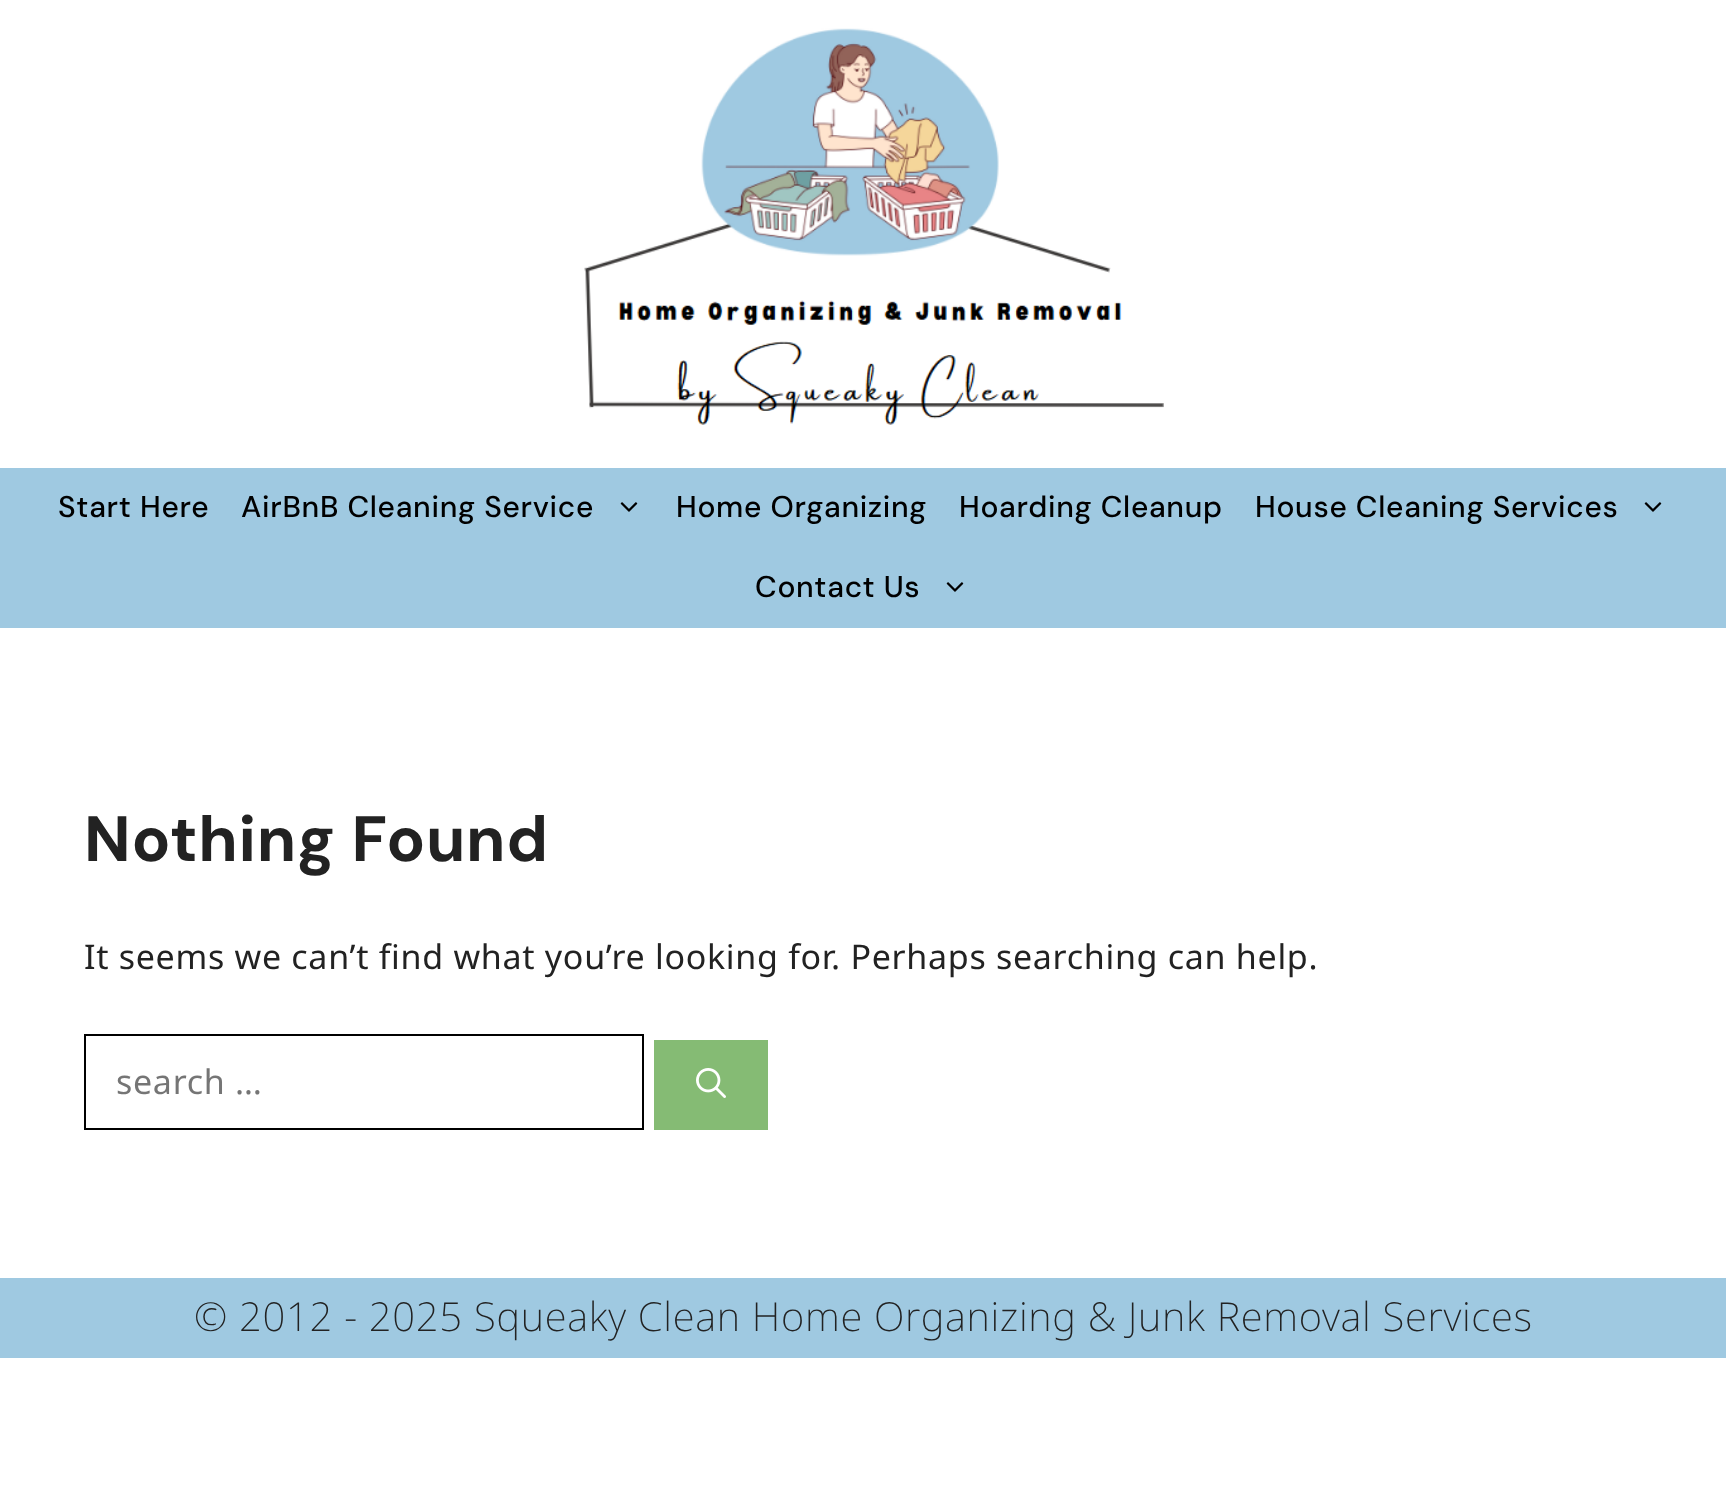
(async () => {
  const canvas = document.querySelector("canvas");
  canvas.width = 1726;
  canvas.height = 1498;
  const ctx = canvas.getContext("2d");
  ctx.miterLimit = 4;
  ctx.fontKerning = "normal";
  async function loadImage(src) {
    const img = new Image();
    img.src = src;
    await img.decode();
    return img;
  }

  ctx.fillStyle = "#ffffff";
  ctx.fillRect(0, 0, 1726, 1498);
  ctx.drawImage(await loadImage("img/1.png"), 584, 28, 580, 397);
  ctx.fillStyle = "#9fc9e1";
  ctx.fillRect(0, 468, 1726, 160);
  ctx.drawImage(await loadImage("img/2.png"), 620, 502, 18, 10);
  ctx.drawImage(await loadImage("img/2.png"), 1644, 502, 18, 10);
  ctx.drawImage(await loadImage("img/2.png"), 946, 582, 18, 10);
  ctx.strokeStyle = "#000000";
  ctx.lineWidth = 2;
  ctx.strokeRect(85, 1035, 558, 94);
  ctx.fillStyle = "#85bb74";
  ctx.fillRect(654, 1040, 114, 90);
  ctx.drawImage(await loadImage("img/3.png"), 696, 1068, 30, 30);
  ctx.fillStyle = "#9fc9e1";
  ctx.fillRect(0, 1278, 1726, 80);
  ctx.letterSpacing = "0.7px";
  ctx.font = "500 30px DM Sans";
  ctx.fillStyle = "#000000";
  for (const [text, x, y] of [
    ["Start Here", 58, 517],
    ["AirBnB Cleaning Service", 241, 517],
    ["Home Organizing", 676, 517],
    ["Hoarding Cleanup", 959, 517],
    ["House Cleaning Services", 1255, 517],
    ["Contact Us", 755, 597],
  ]) {
    ctx.fillText(text, x, y);
  }
  ctx.font = "bold 64px DM Sans";
  ctx.fillStyle = "#222222";
  ctx.fillText("Nothing Found", 84, 861);
  ctx.font = "34px Noto Sans";
  ctx.fillText("It seems we can’t find what you’re looking for. Perhaps searching can help.", 84, 969);
  ctx.fillStyle = "#757575";
  ctx.fillText("search …", 116, 1094);
  ctx.font = "200 40px Noto Sans";
  ctx.fillStyle = "#222222";
  ctx.fillText("© 2012 - 2025 Squeaky Clean Home Organizing & Junk Removal Services", 194, 1331);
})();
